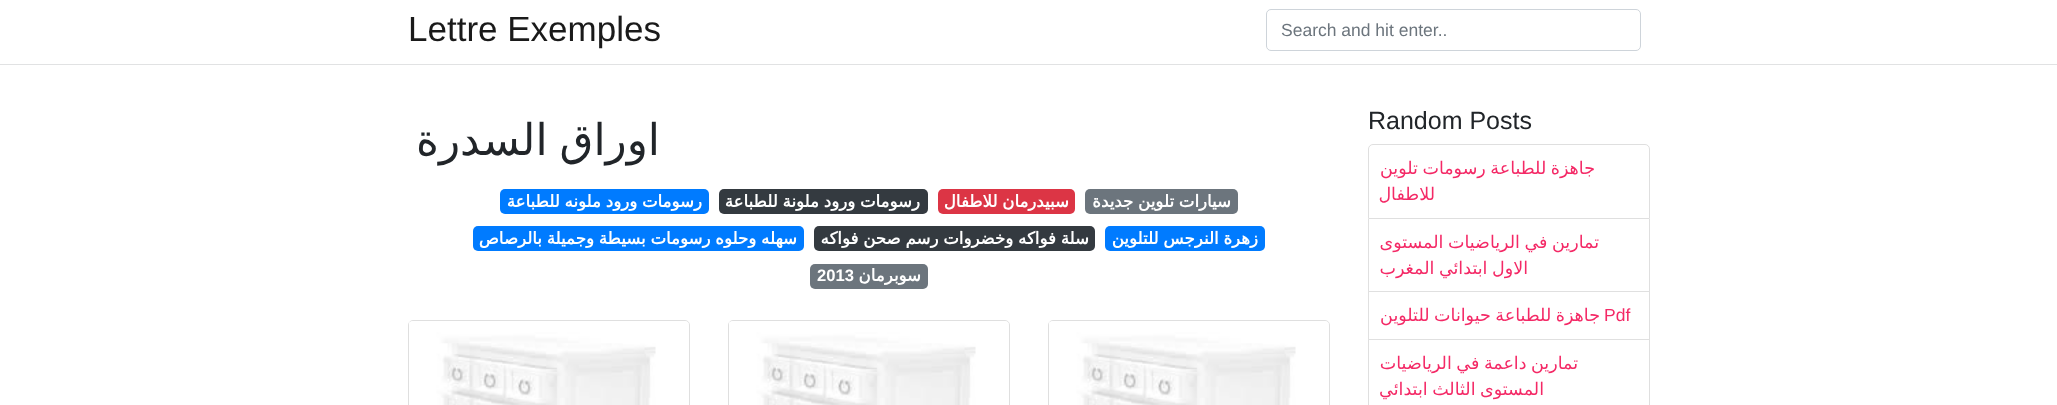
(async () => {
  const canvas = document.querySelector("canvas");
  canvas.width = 2057;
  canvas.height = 405;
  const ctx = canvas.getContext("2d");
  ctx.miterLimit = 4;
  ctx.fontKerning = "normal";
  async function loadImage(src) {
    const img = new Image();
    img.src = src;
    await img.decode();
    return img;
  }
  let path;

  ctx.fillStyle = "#ffffff";
  ctx.fillRect(0, 0, 2057, 405);
  ctx.fillStyle = "#e1e2e3";
  ctx.fillRect(0, 64, 2057, 1);
  ctx.beginPath();
  ctx.roundRect(1266.5, 9.5, 374, 41, 4.5);
  ctx.strokeStyle = "#ced4da";
  ctx.stroke();
  ctx.beginPath();
  ctx.roundRect(1368.5, 144.5, 281, 74, [4.5, 4.5, 0, 0]);
  ctx.strokeStyle = "#dfdfdf";
  ctx.stroke();
  ctx.fillStyle = "#dfdfdf";
  path = new Path2D("M1650 219V292L1649 291V219Z");
  ctx.fill(path);
  ctx.fillStyle = "rgba(0, 0, 0, 0.12)";
  path = new Path2D("M1650 292H1368L1369 291H1649Z");
  ctx.fill(path);
  path = new Path2D("M1368 292V219H1369V291Z");
  ctx.fill(path);
  ctx.fillStyle = "#dfdfdf";
  path = new Path2D("M1650 292V340L1649 339V292Z");
  ctx.fill(path);
  ctx.fillStyle = "rgba(0, 0, 0, 0.12)";
  path = new Path2D("M1650 340H1368L1369 339H1649Z");
  ctx.fill(path);
  path = new Path2D("M1368 340V292H1369V339Z");
  ctx.fill(path);
  ctx.fillStyle = "#dfdfdf";
  path = new Path2D("M1650 340V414L1649 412V340Z");
  ctx.fill(path);
  path = new Path2D("M1368 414V340H1369V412Z");
  ctx.fill(path);
  ctx.fillStyle = "#6c757d";
  ctx.beginPath();
  ctx.roundRect(1085, 189, 153, 25, 5);
  ctx.fill();
  ctx.fillStyle = "#dc3545";
  ctx.beginPath();
  ctx.roundRect(938, 189, 137, 25, 5);
  ctx.fill();
  ctx.fillStyle = "#343a40";
  ctx.beginPath();
  ctx.roundRect(719, 189, 209, 25, 5);
  ctx.fill();
  ctx.fillStyle = "#007bff";
  ctx.beginPath();
  ctx.roundRect(500, 189, 209, 25, 5);
  ctx.fill();
  ctx.beginPath();
  ctx.roundRect(1105, 226, 160, 25, 5);
  ctx.fill();
  ctx.fillStyle = "#343a40";
  ctx.beginPath();
  ctx.roundRect(814, 226, 281, 25, 5);
  ctx.fill();
  ctx.fillStyle = "#007bff";
  ctx.beginPath();
  ctx.roundRect(473, 226, 331, 25, 5);
  ctx.fill();
  ctx.fillStyle = "#6c757d";
  ctx.beginPath();
  ctx.roundRect(810, 264, 118, 25, 5);
  ctx.fill();
  ctx.beginPath();
  ctx.roundRect(1048.5, 320.5, 281, 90, 4.5);
  ctx.stroke();
  ctx.drawImage(await loadImage("img/1.png"), 1049, 321, 280, 84);
  ctx.beginPath();
  ctx.roundRect(728.5, 320.5, 281, 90, 4.5);
  ctx.stroke();
  ctx.drawImage(await loadImage("img/1.png"), 729, 321, 280, 84);
  ctx.beginPath();
  ctx.roundRect(408.5, 320.5, 281, 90, 4.5);
  ctx.stroke();
  ctx.drawImage(await loadImage("img/1.png"), 409, 321, 280, 84);
  ctx.font = "17.5px Liberation Sans";
  ctx.fillText("Search and hit enter..", 1281, 36);
  ctx.font = "35px Liberation Sans";
  ctx.fillStyle = "#1a1a1a";
  ctx.fillText("Lettre Exemples", 408, 41);
  ctx.font = "25px Liberation Sans";
  ctx.fillStyle = "#212529";
  ctx.fillText("Random Posts", 1368, 129);
  ctx.wordSpacing = "-1px";
  ctx.direction = "rtl";
  ctx.font = "17.5px DejaVu Sans";
  ctx.fillStyle = "#f42966";
  ctx.fillText("جاهزة للطباعة رسومات تلوين", 1595, 174);
  ctx.wordSpacing = "0px";
  ctx.fillText("للاطفال", 1435, 200);
  ctx.wordSpacing = "-1px";
  ctx.fillText("تمارين في الرياضيات المستوى", 1599, 248);
  ctx.fillText("الاول ابتدائي المغرب", 1528, 274);
  ctx.wordSpacing = "0px";
  ctx.direction = "ltr";
  ctx.font = "17.5px Liberation Sans";
  ctx.fillText("Pdf", 1604, 321);
  ctx.wordSpacing = "-1px";
  ctx.direction = "rtl";
  ctx.font = "17.5px DejaVu Sans";
  for (const [text, x, y] of [
    ["جاهزة للطباعة حيوانات للتلوين", 1600, 321],
    ["تمارين داعمة في الرياضيات", 1578, 369],
    ["المستوى الثالث ابتدائي", 1544, 395],
  ]) {
    ctx.fillText(text, x, y);
  }
  ctx.wordSpacing = "-2px";
  ctx.font = "43.75px DejaVu Sans";
  ctx.fillStyle = "#212529";
  ctx.fillText("اوراق السدرة", 660, 155);
  ctx.wordSpacing = "-0.5px";
  ctx.font = "bold 16.6px DejaVu Sans";
  ctx.fillStyle = "#ffffff";
  for (const [text, x, y] of [
    ["سيارات تلوين جديدة", 1231, 207],
    ["سبيدرمان للاطفال", 1069, 207],
    ["رسومات ورود ملونة للطباعة", 920, 207],
    ["رسومات ورود ملونه للطباعة", 702, 207],
    ["زهرة النرجس للتلوين", 1258, 244],
    ["سلة فواكه وخضروات رسم صحن فواكه", 1089, 244],
    ["سهله وحلوه رسومات بسيطة وجميلة بالرصاص", 797, 244],
  ]) {
    ctx.fillText(text, x, y);
  }
  ctx.wordSpacing = "0px";
  ctx.fillText("سوبرمان", 921, 281);
  ctx.direction = "ltr";
  ctx.font = "bold 16.6px Liberation Sans";
  ctx.fillText("2013", 817, 281);
})();
